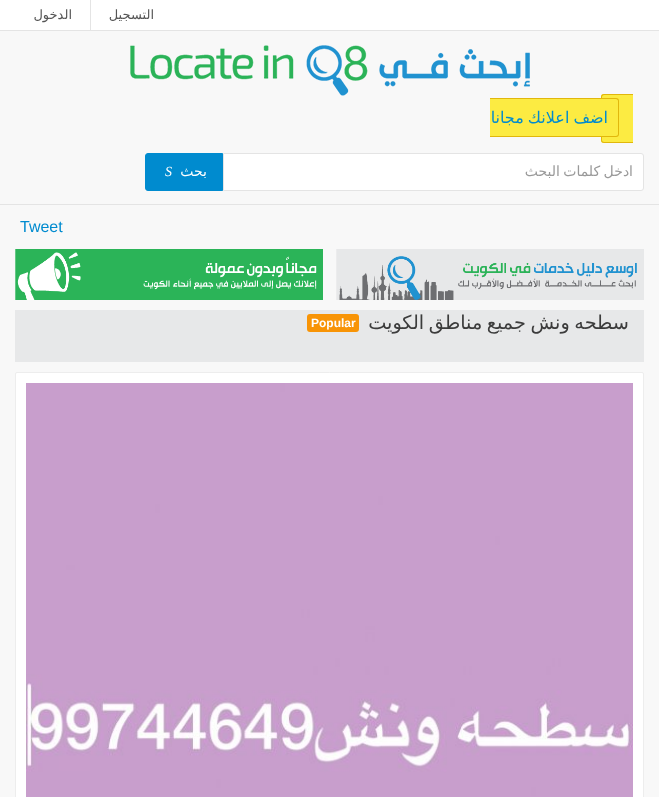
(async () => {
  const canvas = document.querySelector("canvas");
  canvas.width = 659;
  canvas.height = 797;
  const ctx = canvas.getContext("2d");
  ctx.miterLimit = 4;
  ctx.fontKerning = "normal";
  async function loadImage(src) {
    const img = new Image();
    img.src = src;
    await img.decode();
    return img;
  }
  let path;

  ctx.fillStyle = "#f8f8f8";
  ctx.fillRect(0, 0, 659, 797);
  for (const [x, y, w, h, color] of [
    [0, 0, 659, 30, "#ffffff"],
    [0, 30, 659, 1, "#e4e4e4"],
    [90, 0, 1, 30, "#e4e4e4"],
    [0, 204, 659, 1, "#e4e4e4"],
  ]) {
    ctx.fillStyle = color;
    ctx.fillRect(x, y, w, h);
  }
  ctx.drawImage(await loadImage("img/1.png"), 130, 45, 400, 51);
  ctx.fillStyle = "#fceb42";
  ctx.beginPath();
  ctx.roundRect(601, 94, 32, 49, [3, 0, 0, 3]);
  ctx.fill();
  ctx.fillStyle = "#e1b70c";
  path = new Path2D("M604 94H633V143H604C602 143 601 142 601 140V97C601 95 602 94 604 94ZM604 95H633V142H604C603 142 602 141 602 140V97C602 96 603 95 604 95Z");
  ctx.fill(path, "evenodd");
  ctx.fillStyle = "#fceb42";
  ctx.beginPath();
  ctx.roundRect(490, 98, 129, 39, [0, 3, 3, 0]);
  ctx.fill();
  ctx.fillStyle = "#e1b70c";
  path = new Path2D("M490 98H616C618 98 619 99 619 101V134C619 136 618 137 616 137H490ZM490 99H616C617 99 618 100 618 101V134C618 135 617 136 616 136H490Z");
  ctx.fill(path, "evenodd");
  ctx.fillStyle = "#ffffff";
  ctx.beginPath();
  ctx.roundRect(223.5, 153.5, 420, 37, [0, 2.5, 2.5, 0]);
  ctx.fill();
  ctx.strokeStyle = "#e4e4e4";
  ctx.stroke();
  ctx.fillStyle = "#008bcf";
  ctx.beginPath();
  ctx.roundRect(145.5, 153.5, 77, 37, [2.5, 0, 0, 2.5]);
  ctx.fill();
  ctx.strokeStyle = "#008bcf";
  ctx.stroke();
  ctx.drawImage(await loadImage("img/2.png"), 336, 249, 308, 51);
  ctx.drawImage(await loadImage("img/3.png"), 15, 249, 308, 51);
  ctx.fillStyle = "#e7e8e9";
  ctx.fillRect(15, 310, 629, 52);
  ctx.fillStyle = "#f89406";
  ctx.beginPath();
  ctx.roundRect(307, 314, 52, 18, 3);
  ctx.fill();
  ctx.fillStyle = "#ffffff";
  ctx.beginPath();
  ctx.roundRect(15.5, 372.5, 628, 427, 1.5);
  ctx.fill();
  ctx.strokeStyle = "#ededed";
  ctx.stroke();
  ctx.drawImage(await loadImage("img/4.png"), 26, 383, 607, 414);
  ctx.direction = "rtl";
  ctx.font = "13px DejaVu Sans";
  ctx.fillStyle = "#565656";
  ctx.fillText("التسجيل", 154, 19);
  ctx.fillText("الدخول", 72, 19);
  ctx.wordSpacing = "-1px";
  ctx.font = "16px DejaVu Sans";
  ctx.fillStyle = "#008bcf";
  ctx.fillText("اضف اعلانك مجانا", 608, 123);
  ctx.font = "14px DejaVu Sans";
  ctx.fillStyle = "#999999";
  ctx.fillText("ادخل كلمات البحث", 633, 176);
  ctx.wordSpacing = "0px";
  ctx.fillStyle = "#ffffff";
  ctx.fillText("بحث", 207, 176);
  ctx.direction = "ltr";
  ctx.font = "italic 14px Liberation Serif";
  ctx.fillText("S", 165, 176);
  ctx.font = "16px Liberation Sans";
  ctx.fillStyle = "#008bcf";
  ctx.fillText("Tweet", 20, 232);
  ctx.wordSpacing = "-1.5px";
  ctx.direction = "rtl";
  ctx.font = "19.25px DejaVu Sans";
  ctx.fillStyle = "#3c3c3c";
  ctx.fillText("سطحه ونش جميع مناطق الكويت", 629, 329);
  ctx.wordSpacing = "0px";
  ctx.direction = "ltr";
  ctx.font = "bold 12px Liberation Sans";
  ctx.fillStyle = "#ffffff";
  ctx.fillText("Popular", 311, 327);
})();
